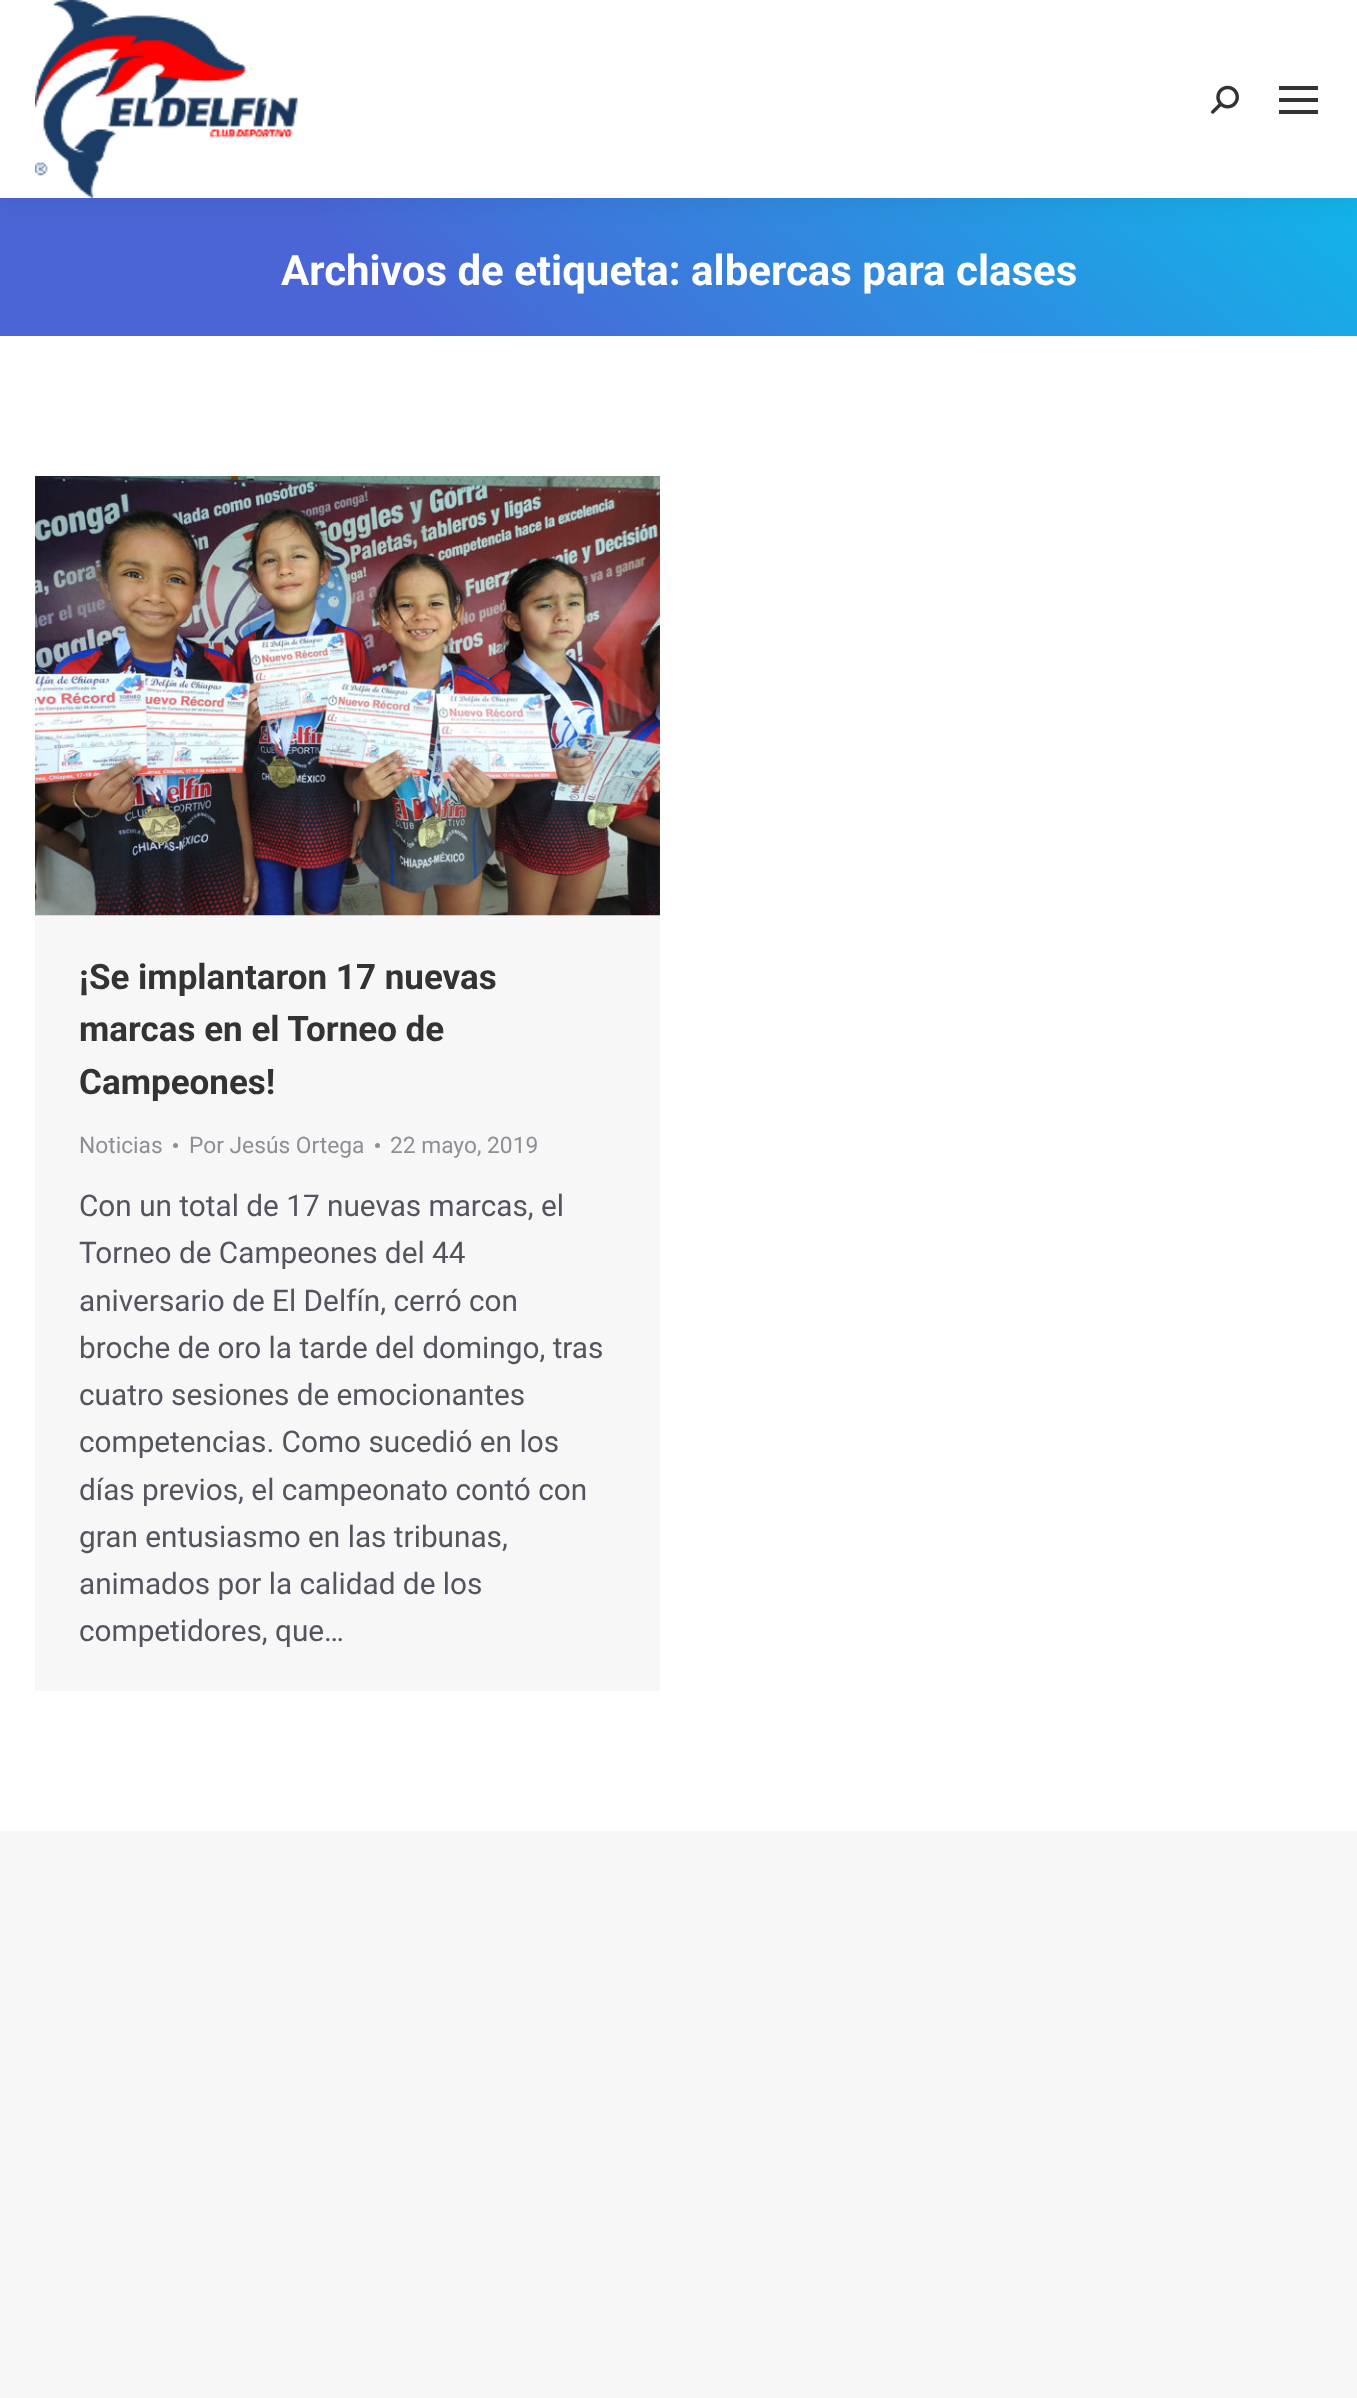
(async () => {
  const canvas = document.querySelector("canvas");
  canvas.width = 1357;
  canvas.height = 2398;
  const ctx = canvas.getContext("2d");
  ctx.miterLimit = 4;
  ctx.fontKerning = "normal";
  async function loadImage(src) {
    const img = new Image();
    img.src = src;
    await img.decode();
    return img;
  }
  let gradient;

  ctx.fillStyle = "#f7f7f7";
  ctx.fillRect(0, 0, 1357, 2398);
  ctx.fillStyle = "#ffffff";
  ctx.fillRect(0, 336, 1357, 1495);
  gradient = ctx.createLinearGradient(353, 642, 1005, -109);
  gradient.addColorStop(0.3, "#4a66d6");
  gradient.addColorStop(1, "#12b4ea");
  ctx.fillStyle = gradient;
  ctx.fillRect(0, 198, 1357, 138);
  ctx.fillStyle = "rgba(0, 0, 0, 0.07)";
  ctx.filter = "blur(13px)";
  ctx.beginPath();
  ctx.rect(-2, -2, 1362, 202);
  ctx.fill();
  ctx.filter = "none";
  ctx.fillStyle = "#ffffff";
  ctx.fillRect(0, 0, 1357, 198);
  ctx.drawImage(await loadImage("img/1.png"), 35, 0, 263, 198);
  ctx.drawImage(await loadImage("img/2.png"), 1211, 85, 28, 29);
  for (const [x, y, w, h, color] of [
    [1279, 86, 39, 4, "#333333"],
    [1279, 98, 39, 4, "#333333"],
    [1279, 110, 39, 4, "#333333"],
    [35, 915, 625, 776, "#f7f7f7"],
  ]) {
    ctx.fillStyle = color;
    ctx.fillRect(x, y, w, h);
  }
  ctx.drawImage(await loadImage("img/3.png"), 35, 476, 625, 440);
  ctx.fillStyle = "#8e8f96";
  ctx.beginPath();
  ctx.arc(175.5, 1145.5, 2.5, 0, Math.PI * 2);
  ctx.fill();
  ctx.beginPath();
  ctx.arc(377.5, 1145.5, 2.5, 0, Math.PI * 2);
  ctx.fill();
  ctx.font = "bold 42px Roboto";
  ctx.fillStyle = "#ffffff";
  ctx.fillText("Archivos de etiqueta: albercas para clases", 281, 285);
  ctx.font = "bold 35px Roboto";
  ctx.fillStyle = "#333333";
  for (const [text, x, y] of [
    ["¡Se implantaron 17 nuevas", 79, 989],
    ["marcas en el Torneo de", 79, 1041],
    ["Campeones!", 79, 1094],
  ]) {
    ctx.fillText(text, x, y);
  }
  ctx.font = "22.75px Roboto";
  ctx.fillStyle = "#8e8f96";
  for (const [text, x, y] of [
    ["Noticias", 79, 1153],
    ["Por Jesús Ortega", 189, 1153],
    ["22 mayo, 2019", 390, 1153],
  ]) {
    ctx.fillText(text, x, y);
  }
  ctx.font = "29.75px Roboto";
  ctx.fillStyle = "#57535e";
  for (const [text, x, y] of [
    ["Con un total de 17 nuevas marcas, el", 79, 1216],
    ["Torneo de Campeones del 44", 79, 1263],
    ["aniversario de El Delfín, cerró con", 79, 1311],
    ["broche de oro la tarde del domingo, tras", 79, 1358],
    ["cuatro sesiones de emocionantes", 79, 1405],
    ["competencias. Como sucedió en los", 79, 1452],
    ["días previos, el campeonato contó con", 79, 1500],
    ["gran entusiasmo en las tribunas,", 79, 1547],
    ["animados por la calidad de los", 79, 1594],
    ["competidores, que…", 79, 1641],
  ]) {
    ctx.fillText(text, x, y);
  }
})();
